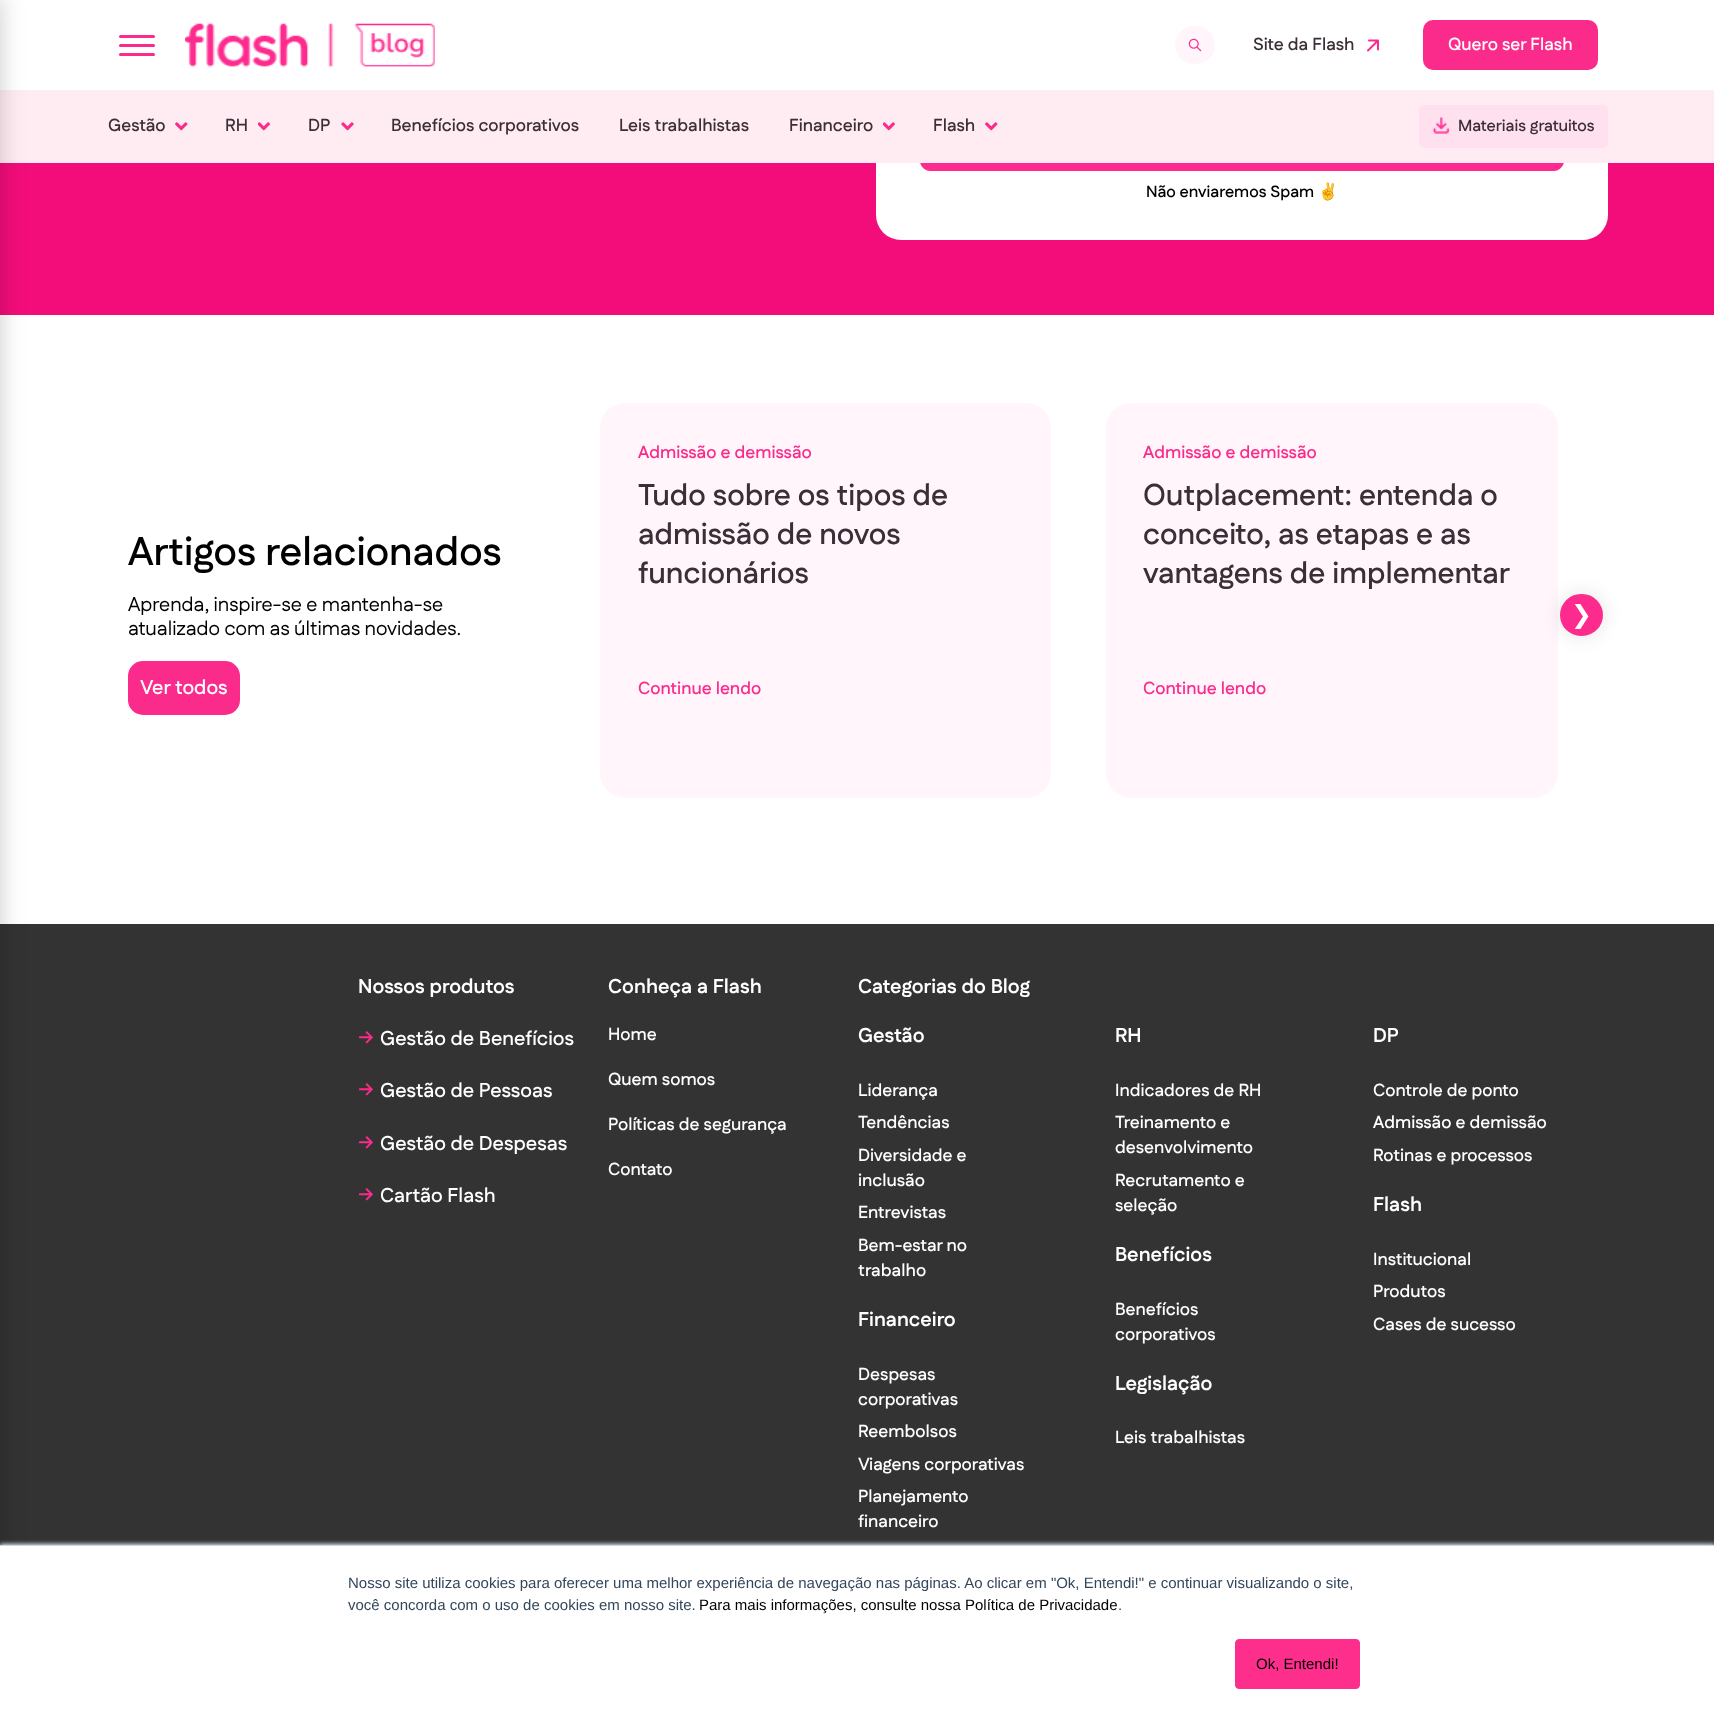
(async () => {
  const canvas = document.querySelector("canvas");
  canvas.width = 1714;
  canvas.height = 1721;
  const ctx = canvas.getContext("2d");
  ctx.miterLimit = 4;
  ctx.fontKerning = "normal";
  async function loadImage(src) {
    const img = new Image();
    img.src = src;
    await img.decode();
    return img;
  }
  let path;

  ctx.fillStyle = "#ffffff";
  ctx.fillRect(0, 0, 1714, 1721);
  ctx.fillStyle = "#f20d7a";
  ctx.fillRect(0, 163, 1714, 152);
  ctx.fillStyle = "#ffffff";
  ctx.beginPath();
  ctx.roundRect(876, -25, 732, 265, 25);
  ctx.fill();
  ctx.fillStyle = "#fe2b8f";
  ctx.beginPath();
  ctx.roundRect(920.5, 110.5, 643, 60, 9.5);
  ctx.fill();
  ctx.strokeStyle = "#fe2b8f";
  ctx.stroke();
  ctx.fillStyle = "#ffecf2";
  ctx.fillRect(0, 90, 1714, 73);
  ctx.fillStyle = "#333333";
  ctx.fillRect(0, 924, 1714, 621);
  ctx.fillStyle = "rgba(0, 0, 0, 0.2)";
  ctx.filter = "blur(12.5px)";
  ctx.beginPath();
  ctx.roundRect(-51, -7, 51, 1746, 13);
  ctx.fill();
  ctx.filter = "none";
  ctx.fillStyle = "#fb2b8c";
  ctx.beginPath();
  ctx.roundRect(119, 35, 36, 3, 1.5);
  ctx.fill();
  ctx.beginPath();
  ctx.roundRect(119, 44, 36, 3, 1.5);
  ctx.fill();
  ctx.beginPath();
  ctx.roundRect(119, 53, 36, 3, 1.5);
  ctx.fill();
  ctx.drawImage(await loadImage("img/1.png"), 185, 22, 250, 45);
  ctx.fillStyle = "#fff5fa";
  ctx.beginPath();
  ctx.roundRect(1175, 26, 40, 38, 19);
  ctx.fill();
  ctx.drawImage(await loadImage("img/2.png"), 1188, 38, 14, 14);
  path = new Path2D("M1378 40.5L1368 50.5M1378 40.5H1369M1378 40.5V49.5");
  ctx.lineWidth = 2;
  ctx.lineCap = "round";
  ctx.lineJoin = "round";
  ctx.stroke(path);
  ctx.fillStyle = "#fb2b8c";
  ctx.beginPath();
  ctx.roundRect(1423, 20, 175, 50, 10);
  ctx.fill();
  ctx.drawImage(await loadImage("img/3.png"), 175, 122, 13, 9);
  ctx.drawImage(await loadImage("img/4.png"), 258, 122, 12, 9);
  ctx.drawImage(await loadImage("img/5.png"), 341, 122, 13, 9);
  ctx.drawImage(await loadImage("img/4.png"), 883, 122, 12, 9);
  ctx.drawImage(await loadImage("img/3.png"), 985, 122, 13, 9);
  ctx.fillStyle = "#ffe0ef";
  ctx.beginPath();
  ctx.roundRect(1419, 105, 189, 43, 5);
  ctx.fill();
  ctx.drawImage(await loadImage("img/6.png"), 1432, 117, 18, 17);
  ctx.fillStyle = "#fb2b8c";
  ctx.beginPath();
  ctx.roundRect(128, 661, 112, 54, 15);
  ctx.fill();
  ctx.fillStyle = "#fff5fa";
  ctx.beginPath();
  ctx.roundRect(600, 403, 451, 395, 25);
  ctx.fill();
  ctx.beginPath();
  ctx.roundRect(1106, 403, 452, 395, 25);
  ctx.fill();
  ctx.fillStyle = "rgba(0, 0, 0, 0.11)";
  ctx.filter = "blur(9.5px)";
  ctx.beginPath();
  ctx.roundRect(1560, 594, 43, 42, 21);
  ctx.fill();
  ctx.filter = "none";
  ctx.fillStyle = "#fe2b8f";
  ctx.beginPath();
  ctx.roundRect(1561.5, 595.5, 40, 39, 19.5);
  ctx.fill();
  ctx.lineWidth = 3;
  ctx.lineJoin = "miter";
  ctx.stroke();
  ctx.fillStyle = "#eaf0f6";
  ctx.filter = "blur(2px)";
  ctx.beginPath();
  ctx.rect(0, 1544, 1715, 176);
  ctx.fill();
  ctx.filter = "none";
  ctx.fillStyle = "#ffffff";
  ctx.fillRect(0, 1546, 1714, 175);
  ctx.fillStyle = "#cbd6e2";
  ctx.fillRect(0, 1545, 1714, 1);
  ctx.fillStyle = "#fe2e8d";
  ctx.beginPath();
  ctx.roundRect(1235.5, 1639.5, 124, 49, 3.5);
  ctx.fill();
  ctx.strokeStyle = "#fe2e8d";
  ctx.lineWidth = 1;
  ctx.stroke();
  ctx.font = "600 17.5px Fustat";
  ctx.fillStyle = "#3b2e37";
  ctx.fillText("Site da Flash", 1253, 50);
  ctx.fillStyle = "#ffffff";
  ctx.fillText("Quero ser Flash", 1448, 50);
  ctx.fillStyle = "#3b2e37";
  for (const [text, x, y] of [
    ["Gestão", 108, 131],
    ["RH", 225, 131],
    ["DP", 308, 131],
    ["Benefícios corporativos", 391, 131],
    ["Leis trabalhistas", 619, 131],
    ["Financeiro", 789, 131],
    ["Flash", 933, 131],
  ]) {
    ctx.fillText(text, x, y);
  }
  ctx.font = "600 16.25px Fustat";
  ctx.fillText("Materiais gratuitos", 1458, 131);
  ctx.fillStyle = "#000000";
  ctx.fillText("Não enviaremos Spam", 1146, 197);
  ctx.font = "bold 16.25px Noto Color Emoji";
  ctx.fillText("✌️", 1318, 197);
  ctx.font = "600 40px Fustat";
  ctx.fillText("Artigos relacionados", 128, 565);
  ctx.font = "20px Fustat";
  ctx.fillText("Aprenda, inspire-se e mantenha-se", 128, 611);
  ctx.fillText("atualizado com as últimas novidades.", 128, 635);
  ctx.font = "600 20px Fustat";
  ctx.fillStyle = "#ffffff";
  ctx.fillText("Ver todos", 140, 694);
  ctx.font = "600 17.5px Fustat";
  ctx.fillStyle = "#fb2b8c";
  ctx.fillText("Admissão e demissão", 638, 458);
  ctx.font = "600 30px Fustat";
  ctx.fillStyle = "#3b2e37";
  for (const [text, x, y] of [
    ["Tudo sobre os tipos de", 638, 505],
    ["admissão de novos", 638, 544],
    ["funcionários", 638, 583],
  ]) {
    ctx.fillText(text, x, y);
  }
  ctx.font = "600 17.5px Fustat";
  ctx.fillStyle = "#fb2b8c";
  ctx.fillText("Continue lendo", 638, 694);
  ctx.fillText("Admissão e demissão", 1143, 458);
  ctx.font = "600 30px Fustat";
  ctx.fillStyle = "#3b2e37";
  for (const [text, x, y] of [
    ["Outplacement: entenda o", 1143, 505],
    ["conceito, as etapas e as", 1143, 544],
    ["vantagens de implementar", 1143, 583],
  ]) {
    ctx.fillText(text, x, y);
  }
  ctx.font = "600 17.5px Fustat";
  ctx.fillStyle = "#fb2b8c";
  ctx.fillText("Continue lendo", 1143, 694);
  ctx.font = "25px DejaVu Sans";
  ctx.fillStyle = "#ffffff";
  ctx.fillText("❯", 1571, 623);
  ctx.font = "bold 20px Fustat";
  ctx.fillText("Nossos produtos", 358, 993);
  ctx.font = "600 22px Fustat";
  ctx.fillStyle = "#fb2b8c";
  ctx.fillText("→", 358, 1045);
  ctx.font = "600 20px Fustat";
  ctx.fillStyle = "#ffffff";
  ctx.fillText("Gestão de Benefícios", 380, 1045);
  ctx.font = "600 22px Fustat";
  ctx.fillStyle = "#fb2b8c";
  ctx.fillText("→", 358, 1097);
  ctx.font = "600 20px Fustat";
  ctx.fillStyle = "#ffffff";
  ctx.fillText("Gestão de Pessoas", 380, 1097);
  ctx.font = "600 22px Fustat";
  ctx.fillStyle = "#fb2b8c";
  ctx.fillText("→", 358, 1150);
  ctx.font = "600 20px Fustat";
  ctx.fillStyle = "#ffffff";
  ctx.fillText("Gestão de Despesas", 380, 1150);
  ctx.font = "600 22px Fustat";
  ctx.fillStyle = "#fb2b8c";
  ctx.fillText("→", 358, 1202);
  ctx.font = "600 20px Fustat";
  ctx.fillStyle = "#ffffff";
  ctx.fillText("Cartão Flash", 380, 1202);
  ctx.font = "bold 20px Fustat";
  ctx.fillText("Conheça a Flash", 608, 993);
  ctx.font = "600 17.5px Fustat";
  for (const [text, x, y] of [
    ["Home", 608, 1040],
    ["Quem somos", 608, 1085],
    ["Políticas de segurança", 608, 1130],
    ["Contato", 608, 1175],
  ]) {
    ctx.fillText(text, x, y);
  }
  ctx.font = "bold 20px Fustat";
  ctx.fillText("Categorias do Blog", 858, 993);
  ctx.fillText("Gestão", 858, 1042);
  ctx.font = "600 17.5px Fustat";
  for (const [text, x, y] of [
    ["Liderança", 858, 1096],
    ["Tendências", 858, 1128],
    ["Diversidade e", 858, 1161],
    ["inclusão", 858, 1186],
    ["Entrevistas", 858, 1218],
    ["Bem-estar no", 858, 1251],
    ["trabalho", 858, 1276],
  ]) {
    ctx.fillText(text, x, y);
  }
  ctx.font = "bold 20px Fustat";
  ctx.fillText("RH", 1115, 1042);
  ctx.font = "600 17.5px Fustat";
  for (const [text, x, y] of [
    ["Indicadores de RH", 1115, 1096],
    ["Treinamento e", 1115, 1128],
    ["desenvolvimento", 1115, 1153],
    ["Recrutamento e", 1115, 1186],
    ["seleção", 1115, 1211],
  ]) {
    ctx.fillText(text, x, y);
  }
  ctx.font = "bold 20px Fustat";
  ctx.fillText("DP", 1373, 1042);
  ctx.font = "600 17.5px Fustat";
  for (const [text, x, y] of [
    ["Controle de ponto", 1373, 1096],
    ["Admissão e demissão", 1373, 1128],
    ["Rotinas e processos", 1373, 1161],
  ]) {
    ctx.fillText(text, x, y);
  }
  ctx.font = "bold 20px Fustat";
  ctx.fillText("Benefícios", 1115, 1261);
  ctx.font = "600 17.5px Fustat";
  ctx.fillText("Benefícios", 1115, 1315);
  ctx.fillText("corporativos", 1115, 1340);
  ctx.font = "bold 20px Fustat";
  ctx.fillText("Flash", 1373, 1211);
  ctx.font = "600 17.5px Fustat";
  for (const [text, x, y] of [
    ["Institucional", 1373, 1265],
    ["Produtos", 1373, 1297],
    ["Cases de sucesso", 1373, 1330],
  ]) {
    ctx.fillText(text, x, y);
  }
  ctx.font = "bold 20px Fustat";
  ctx.fillText("Financeiro", 858, 1326);
  ctx.font = "600 17.5px Fustat";
  for (const [text, x, y] of [
    ["Despesas", 858, 1380],
    ["corporativas", 858, 1405],
    ["Reembolsos", 858, 1437],
    ["Viagens corporativas", 858, 1470],
    ["Planejamento", 858, 1502],
    ["financeiro", 858, 1527],
  ]) {
    ctx.fillText(text, x, y);
  }
  ctx.font = "bold 20px Fustat";
  ctx.fillText("Legislação", 1115, 1390);
  ctx.font = "600 17.5px Fustat";
  ctx.fillText("Leis trabalhistas", 1115, 1443);
  ctx.font = "15px Liberation Sans";
  ctx.fillStyle = "#33475b";
  ctx.fillText("Nosso site utiliza cookies para oferecer uma melhor experiência de navegação nas páginas. Ao clicar em \"Ok, Entendi!\" e continuar visualizando o site,", 348, 1588);
  ctx.fillText("você concorda com o uso de cookies em nosso site.", 348, 1610);
  ctx.fillStyle = "#000000";
  ctx.fillText("Para mais informações, consulte nossa Política de Privacidade", 699, 1610);
  ctx.fillStyle = "#33475b";
  ctx.fillText(".", 1118, 1610);
  ctx.fillStyle = "#000000";
  ctx.fillText("Ok, Entendi!", 1256, 1669);
})();
